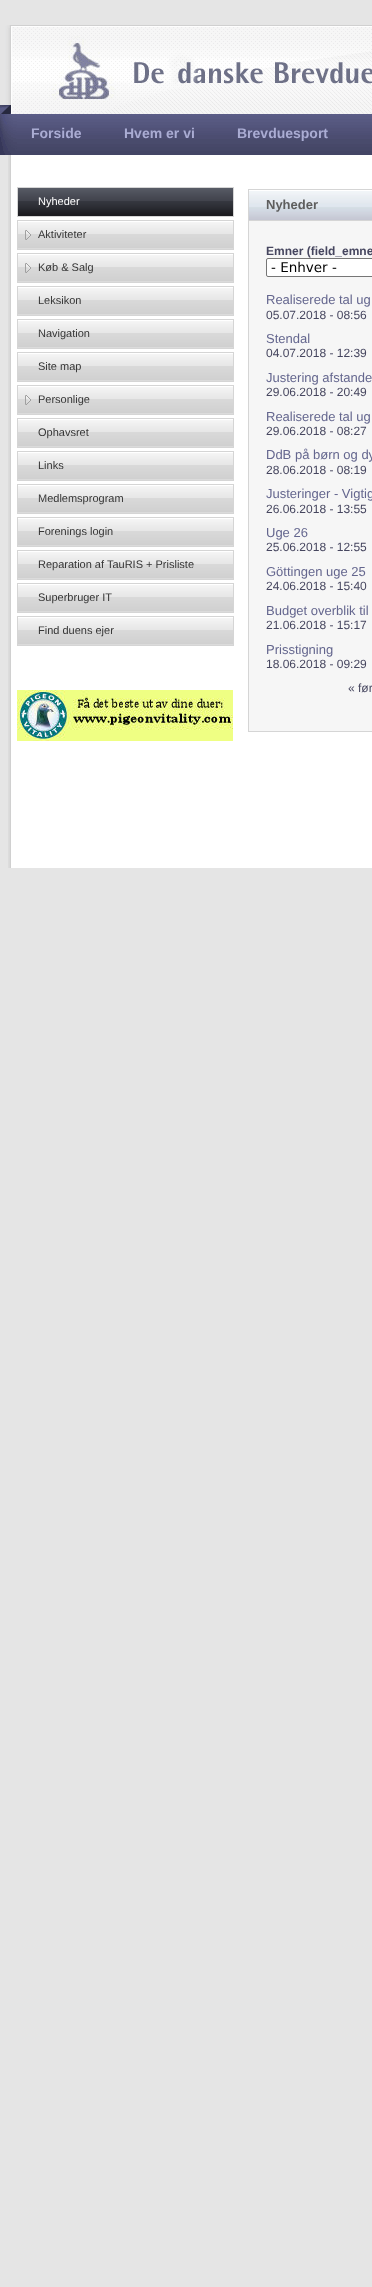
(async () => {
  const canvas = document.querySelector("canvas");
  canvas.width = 372;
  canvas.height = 2287;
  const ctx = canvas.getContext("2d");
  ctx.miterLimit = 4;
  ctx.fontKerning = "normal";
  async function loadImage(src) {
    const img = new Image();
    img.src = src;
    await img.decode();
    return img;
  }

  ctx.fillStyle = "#e5e5e5";
  ctx.fillRect(0, 0, 372, 2287);
  ctx.drawImage(await loadImage("img/1.png"), 0, 25, 372, 130);
  ctx.drawImage(await loadImage("img/2.png"), 8, 155, 364, 713);
  ctx.drawImage(await loadImage("img/3.png"), 18, 188, 215, 28);
  ctx.strokeStyle = "#d5d5d5";
  ctx.strokeRect(17.5, 187.5, 216, 29);
  ctx.drawImage(await loadImage("img/4.png"), 18, 221, 215, 28);
  ctx.strokeRect(17.5, 220.5, 216, 29);
  ctx.drawImage(await loadImage("img/4.png"), 18, 254, 215, 28);
  ctx.strokeRect(17.5, 253.5, 216, 29);
  ctx.drawImage(await loadImage("img/5.png"), 18, 287, 215, 28);
  ctx.strokeRect(17.5, 286.5, 216, 29);
  ctx.drawImage(await loadImage("img/5.png"), 18, 320, 215, 28);
  ctx.strokeRect(17.5, 319.5, 216, 29);
  ctx.drawImage(await loadImage("img/5.png"), 18, 353, 215, 28);
  ctx.strokeRect(17.5, 352.5, 216, 29);
  ctx.drawImage(await loadImage("img/4.png"), 18, 386, 215, 28);
  ctx.strokeRect(17.5, 385.5, 216, 29);
  ctx.drawImage(await loadImage("img/5.png"), 18, 419, 215, 28);
  ctx.strokeRect(17.5, 418.5, 216, 29);
  ctx.drawImage(await loadImage("img/5.png"), 18, 452, 215, 28);
  ctx.strokeRect(17.5, 451.5, 216, 29);
  ctx.drawImage(await loadImage("img/5.png"), 18, 485, 215, 28);
  ctx.strokeRect(17.5, 484.5, 216, 29);
  ctx.drawImage(await loadImage("img/5.png"), 18, 518, 215, 28);
  ctx.strokeRect(17.5, 517.5, 216, 29);
  ctx.drawImage(await loadImage("img/5.png"), 18, 551, 215, 28);
  ctx.strokeRect(17.5, 550.5, 216, 29);
  ctx.drawImage(await loadImage("img/5.png"), 18, 584, 215, 28);
  ctx.strokeRect(17.5, 583.5, 216, 29);
  ctx.drawImage(await loadImage("img/5.png"), 18, 617, 215, 28);
  ctx.strokeRect(17.5, 616.5, 216, 29);
  ctx.drawImage(await loadImage("img/6.png"), 17, 690, 216, 51);
  ctx.drawImage(await loadImage("img/7.png"), 249, 190, 123, 30);
  ctx.strokeRect(248.5, 189.5, 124, 31);
  for (const [x, y, w, h, color] of [
    [249, 221, 123, 510, "#f6f6f6"],
    [248, 731, 124, 1, "#d5d5d5"],
    [248, 221, 1, 511, "#d5d5d5"],
  ]) {
    ctx.fillStyle = color;
    ctx.fillRect(x, y, w, h);
  }
  ctx.fillStyle = "#ffffff";
  ctx.beginPath();
  ctx.roundRect(266.5, 258.5, 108, 18, 1.5);
  ctx.fill();
  ctx.strokeStyle = "#767676";
  ctx.stroke();
  ctx.font = "bold 14px Liberation Sans";
  ctx.fillStyle = "#aaacd3";
  for (const [text, x, y] of [
    ["Forside", 31, 138],
    ["Hvem er vi", 124, 138],
    ["Brevduesport", 237, 138],
  ]) {
    ctx.fillText(text, x, y);
  }
  ctx.font = "11px Liberation Sans";
  ctx.fillStyle = "#ffffff";
  ctx.fillText("Nyheder", 38, 205);
  ctx.fillStyle = "#363636";
  for (const [text, x, y] of [
    ["Aktiviteter", 38, 238],
    ["Køb & Salg", 38, 271],
    ["Leksikon", 38, 304],
    ["Navigation", 38, 337],
    ["Site map", 38, 370],
    ["Personlige", 38, 403],
    ["Ophavsret", 38, 436],
    ["Links", 38, 469],
    ["Medlemsprogram", 38, 502],
    ["Forenings login", 38, 535],
    ["Reparation af TauRIS + Prisliste", 38, 568],
    ["Superbruger IT", 38, 601],
    ["Find duens ejer", 38, 634],
  ]) {
    ctx.fillText(text, x, y);
  }
  ctx.font = "bold 13px Liberation Sans";
  ctx.fillStyle = "#5e5e5e";
  ctx.fillText("Nyheder", 266, 209);
  ctx.font = "bold 12px Liberation Sans";
  ctx.fillStyle = "#46465f";
  ctx.fillText("Emner (field_emne", 266, 255);
  ctx.font = "13.5px DejaVu Sans";
  ctx.fillStyle = "#000000";
  ctx.fillText("- Enhver -", 271, 272);
  ctx.font = "13px Liberation Sans";
  ctx.fillStyle = "#64668e";
  ctx.fillText("Realiserede tal ug", 266, 304);
  ctx.font = "12px Liberation Sans";
  ctx.fillStyle = "#46465f";
  ctx.fillText("05.07.2018 - 08:56", 266, 319);
  ctx.font = "13px Liberation Sans";
  ctx.fillStyle = "#64668e";
  ctx.fillText("Stendal", 266, 343);
  ctx.font = "12px Liberation Sans";
  ctx.fillStyle = "#46465f";
  ctx.fillText("04.07.2018 - 12:39", 266, 357);
  ctx.font = "13px Liberation Sans";
  ctx.fillStyle = "#64668e";
  ctx.fillText("Justering afstande", 266, 382);
  ctx.font = "12px Liberation Sans";
  ctx.fillStyle = "#46465f";
  ctx.fillText("29.06.2018 - 20:49", 266, 396);
  ctx.font = "13px Liberation Sans";
  ctx.fillStyle = "#64668e";
  ctx.fillText("Realiserede tal ug", 266, 421);
  ctx.font = "12px Liberation Sans";
  ctx.fillStyle = "#46465f";
  ctx.fillText("29.06.2018 - 08:27", 266, 435);
  ctx.font = "13px Liberation Sans";
  ctx.fillStyle = "#64668e";
  ctx.fillText("DdB på børn og dy", 266, 459);
  ctx.font = "12px Liberation Sans";
  ctx.fillStyle = "#46465f";
  ctx.fillText("28.06.2018 - 08:19", 266, 474);
  ctx.font = "13px Liberation Sans";
  ctx.fillStyle = "#64668e";
  ctx.fillText("Justeringer - Vigtig", 266, 498);
  ctx.font = "12px Liberation Sans";
  ctx.fillStyle = "#46465f";
  ctx.fillText("26.06.2018 - 13:55", 266, 513);
  ctx.font = "13px Liberation Sans";
  ctx.fillStyle = "#64668e";
  ctx.fillText("Uge 26", 266, 537);
  ctx.font = "12px Liberation Sans";
  ctx.fillStyle = "#46465f";
  ctx.fillText("25.06.2018 - 12:55", 266, 551);
  ctx.font = "13px Liberation Sans";
  ctx.fillStyle = "#64668e";
  ctx.fillText("Göttingen uge 25", 266, 576);
  ctx.font = "12px Liberation Sans";
  ctx.fillStyle = "#46465f";
  ctx.fillText("24.06.2018 - 15:40", 266, 590);
  ctx.font = "13px Liberation Sans";
  ctx.fillStyle = "#64668e";
  ctx.fillText("Budget overblik til", 266, 615);
  ctx.font = "12px Liberation Sans";
  ctx.fillStyle = "#46465f";
  ctx.fillText("21.06.2018 - 15:17", 266, 629);
  ctx.font = "13px Liberation Sans";
  ctx.fillStyle = "#64668e";
  ctx.fillText("Prisstigning", 266, 654);
  ctx.font = "12px Liberation Sans";
  ctx.fillStyle = "#46465f";
  ctx.fillText("18.06.2018 - 09:29", 266, 668);
  ctx.fillText("« før", 348, 692);
})();
